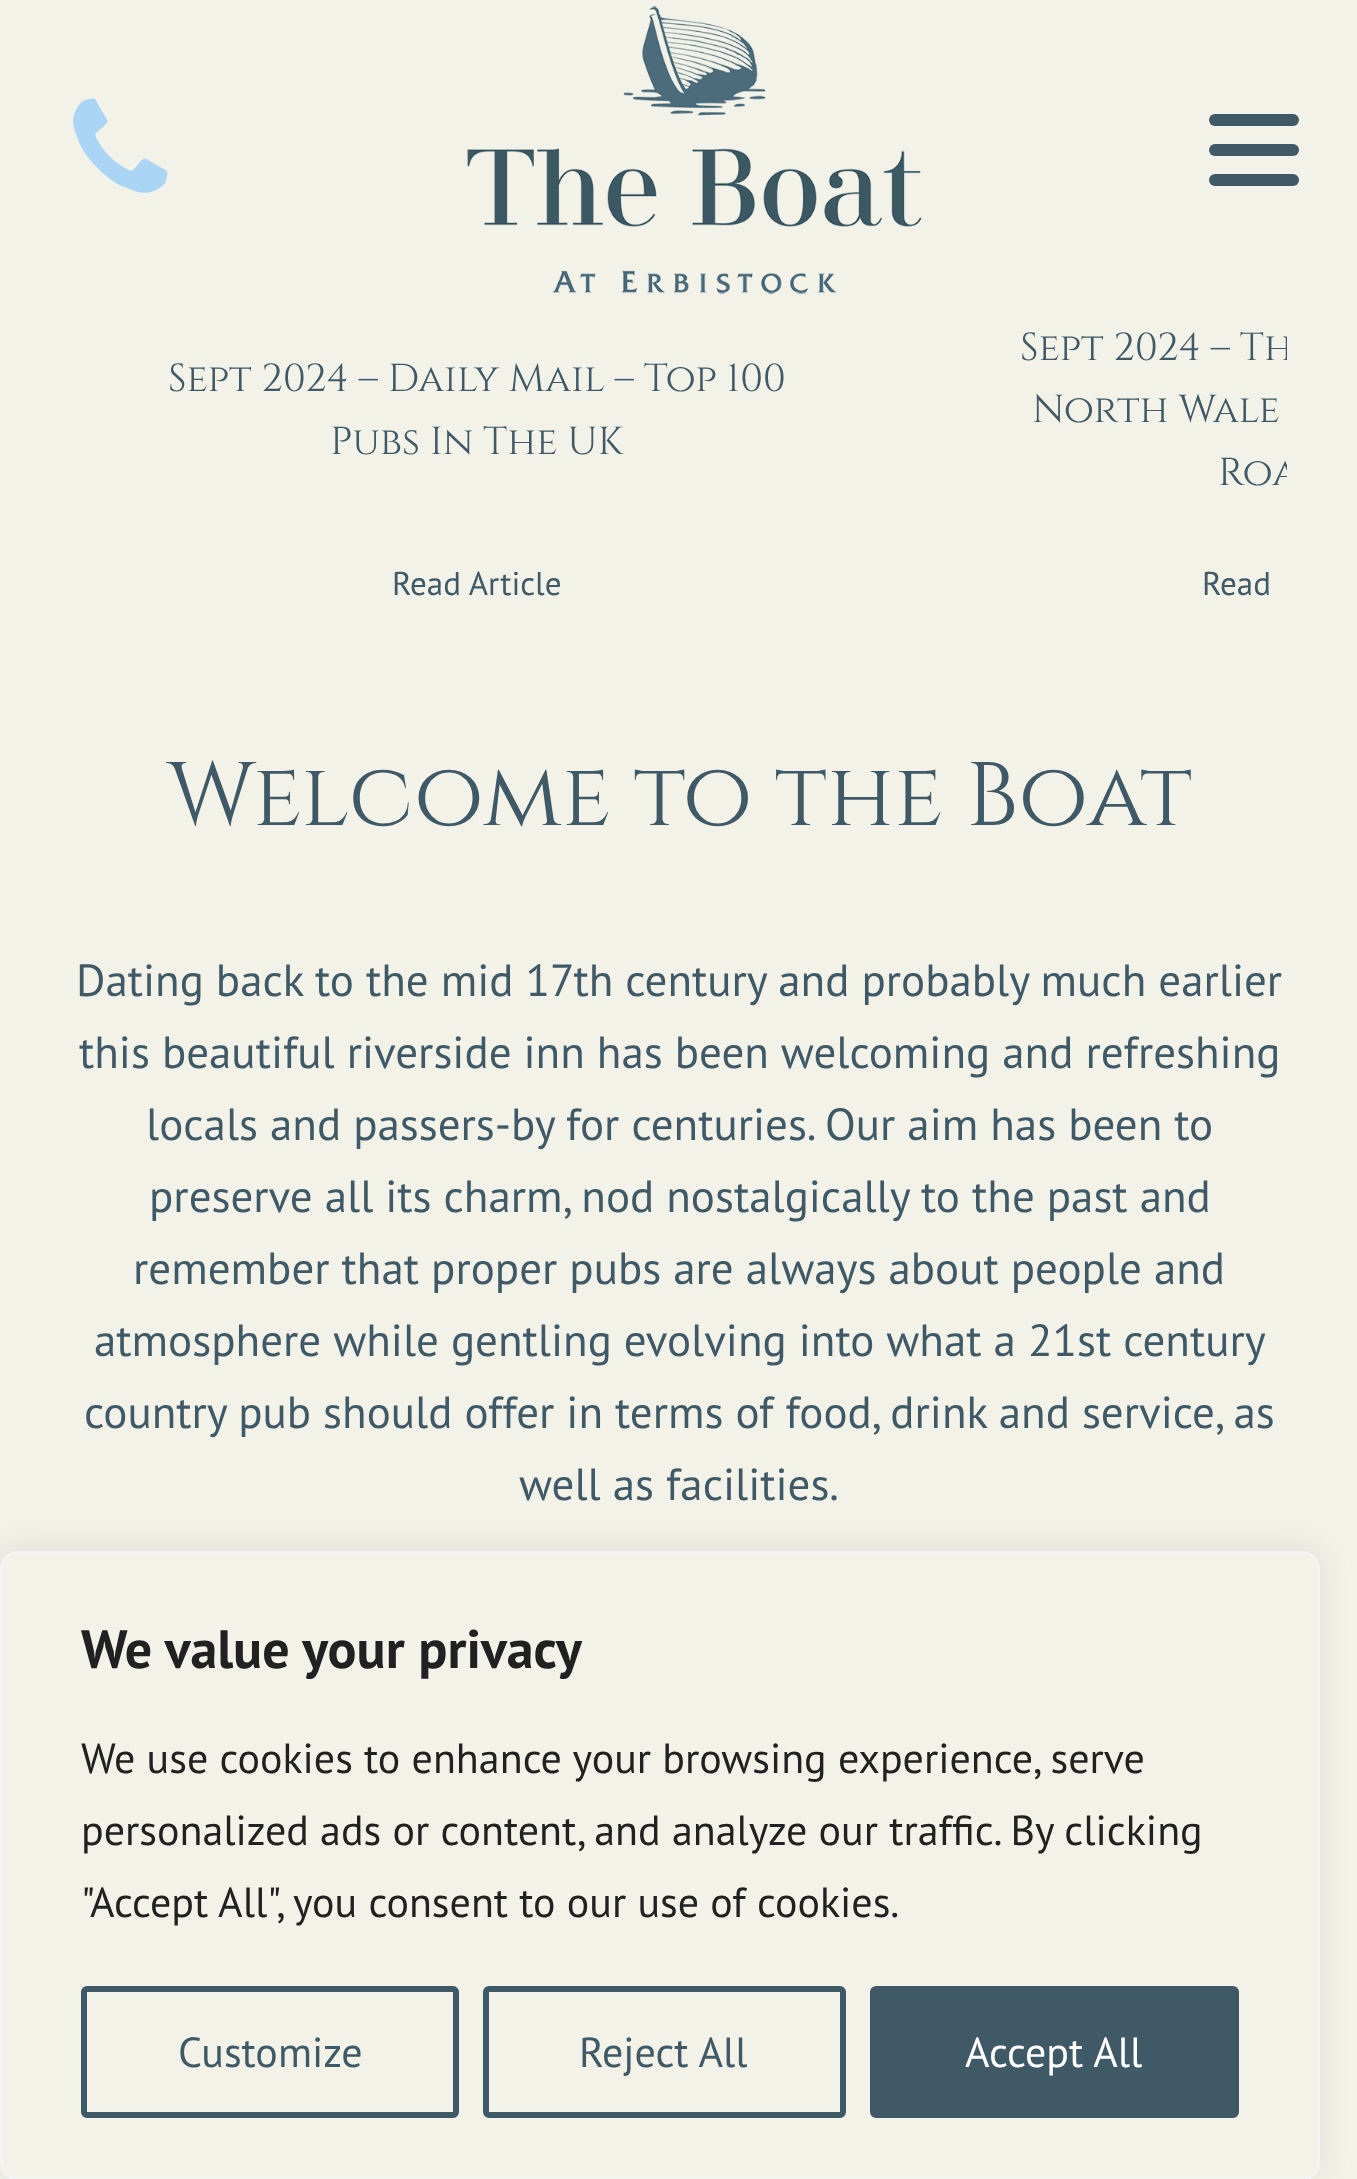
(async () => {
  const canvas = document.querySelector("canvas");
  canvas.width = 1357;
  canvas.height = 2179;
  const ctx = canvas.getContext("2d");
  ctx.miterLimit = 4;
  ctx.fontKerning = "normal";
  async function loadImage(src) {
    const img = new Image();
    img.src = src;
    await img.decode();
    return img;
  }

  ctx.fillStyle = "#f2f2e8";
  ctx.fillRect(0, 0, 1357, 2179);
  ctx.drawImage(await loadImage("img/1.png"), 73, 98, 95, 95);
  ctx.drawImage(await loadImage("img/2.png"), 467, 6, 455, 288);
  ctx.fillStyle = "#405966";
  ctx.beginPath();
  ctx.roundRect(1209, 114, 90, 12, 6);
  ctx.fill();
  ctx.beginPath();
  ctx.roundRect(1209, 144, 90, 12, 6);
  ctx.fill();
  ctx.beginPath();
  ctx.roundRect(1209, 174, 90, 12, 6);
  ctx.fill();
  ctx.fillStyle = "rgba(172, 171, 171, 0.3)";
  ctx.filter = "blur(15px)";
  ctx.beginPath();
  ctx.roundRect(0, 1548, 1320, 630, 18);
  ctx.fill();
  ctx.filter = "none";
  ctx.fillStyle = "#f2f2e8";
  ctx.beginPath();
  ctx.roundRect(1.5, 1552.5, 1317, 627, 16.5);
  ctx.fill();
  ctx.strokeStyle = "#f4f4f4";
  ctx.lineWidth = 3;
  ctx.stroke();
  ctx.beginPath();
  ctx.roundRect(84, 1989, 372, 126, 3);
  ctx.strokeStyle = "#405966";
  ctx.lineWidth = 6;
  ctx.stroke();
  ctx.beginPath();
  ctx.roundRect(486, 1989, 357, 126, 3);
  ctx.stroke();
  ctx.fillStyle = "#405966";
  ctx.beginPath();
  ctx.roundRect(873, 1989, 363, 126, 3);
  ctx.fill();
  ctx.stroke();
  ctx.font = "39px Cinzel";
  ctx.fillText("Sept 2024 – Daily Mail – Top 100", 168, 391);
  ctx.fillText("Pubs In The UK", 330, 454);
  ctx.font = "33px PT Sans";
  ctx.fillText("Read Article", 392, 595);
  ctx.save();
  ctx.beginPath();
  ctx.rect(72, 120, 1215, 606);
  ctx.clip();
  ctx.font = "39px Cinzel";
  ctx.fillText("Sept 2024 – Th", 1020, 360);
  ctx.restore();
  ctx.font = "39px Cinzel";
  ctx.fillText("North Wale", 1032, 422);
  ctx.save();
  ctx.beginPath();
  ctx.rect(72, 120, 1215, 606);
  ctx.clip();
  ctx.fillText("Roa", 1218, 485);
  ctx.restore();
  ctx.font = "33px PT Sans";
  ctx.fillText("Read", 1202, 595);
  ctx.font = "90px Cinzel";
  ctx.fillText("Welcome to the Boat", 167, 825);
  ctx.font = "45px PT Sans";
  for (const [text, x, y] of [
    ["Dating back to the mid 17th century and probably much earlier", 76, 996],
    ["this beautiful riverside inn has been welcoming and refreshing", 79, 1068],
    ["locals and passers-by for centuries. Our aim has been to", 146, 1140],
    ["preserve all its charm, nod nostalgically to the past and", 149, 1212],
    ["remember that proper pubs are always about people and", 133, 1284],
    ["atmosphere while gentling evolving into what a 21st century", 94, 1356],
    ["country pub should offer in terms of food, drink and service, as", 84, 1428],
    ["well as facilities.", 519, 1500],
  ]) {
    ctx.fillText(text, x, y);
  }
  ctx.font = "bold 54px PT Sans";
  ctx.fillStyle = "#212121";
  ctx.fillText("We value your privacy", 81, 1668);
  ctx.font = "42px PT Sans";
  for (const [text, x, y] of [
    ["We use cookies to enhance your browsing experience, serve", 81, 1773],
    ["personalized ads or content, and analyze our traffic. By clicking", 81, 1845],
    ["\"Accept All\", you consent to our use of cookies.", 81, 1917],
  ]) {
    ctx.fillText(text, x, y);
  }
  ctx.fillStyle = "#405966";
  ctx.fillText("Customize", 178, 2067);
  ctx.fillText("Reject All", 579, 2067);
  ctx.fillStyle = "#ffffff";
  ctx.fillText("Accept All", 965, 2067);
})();
